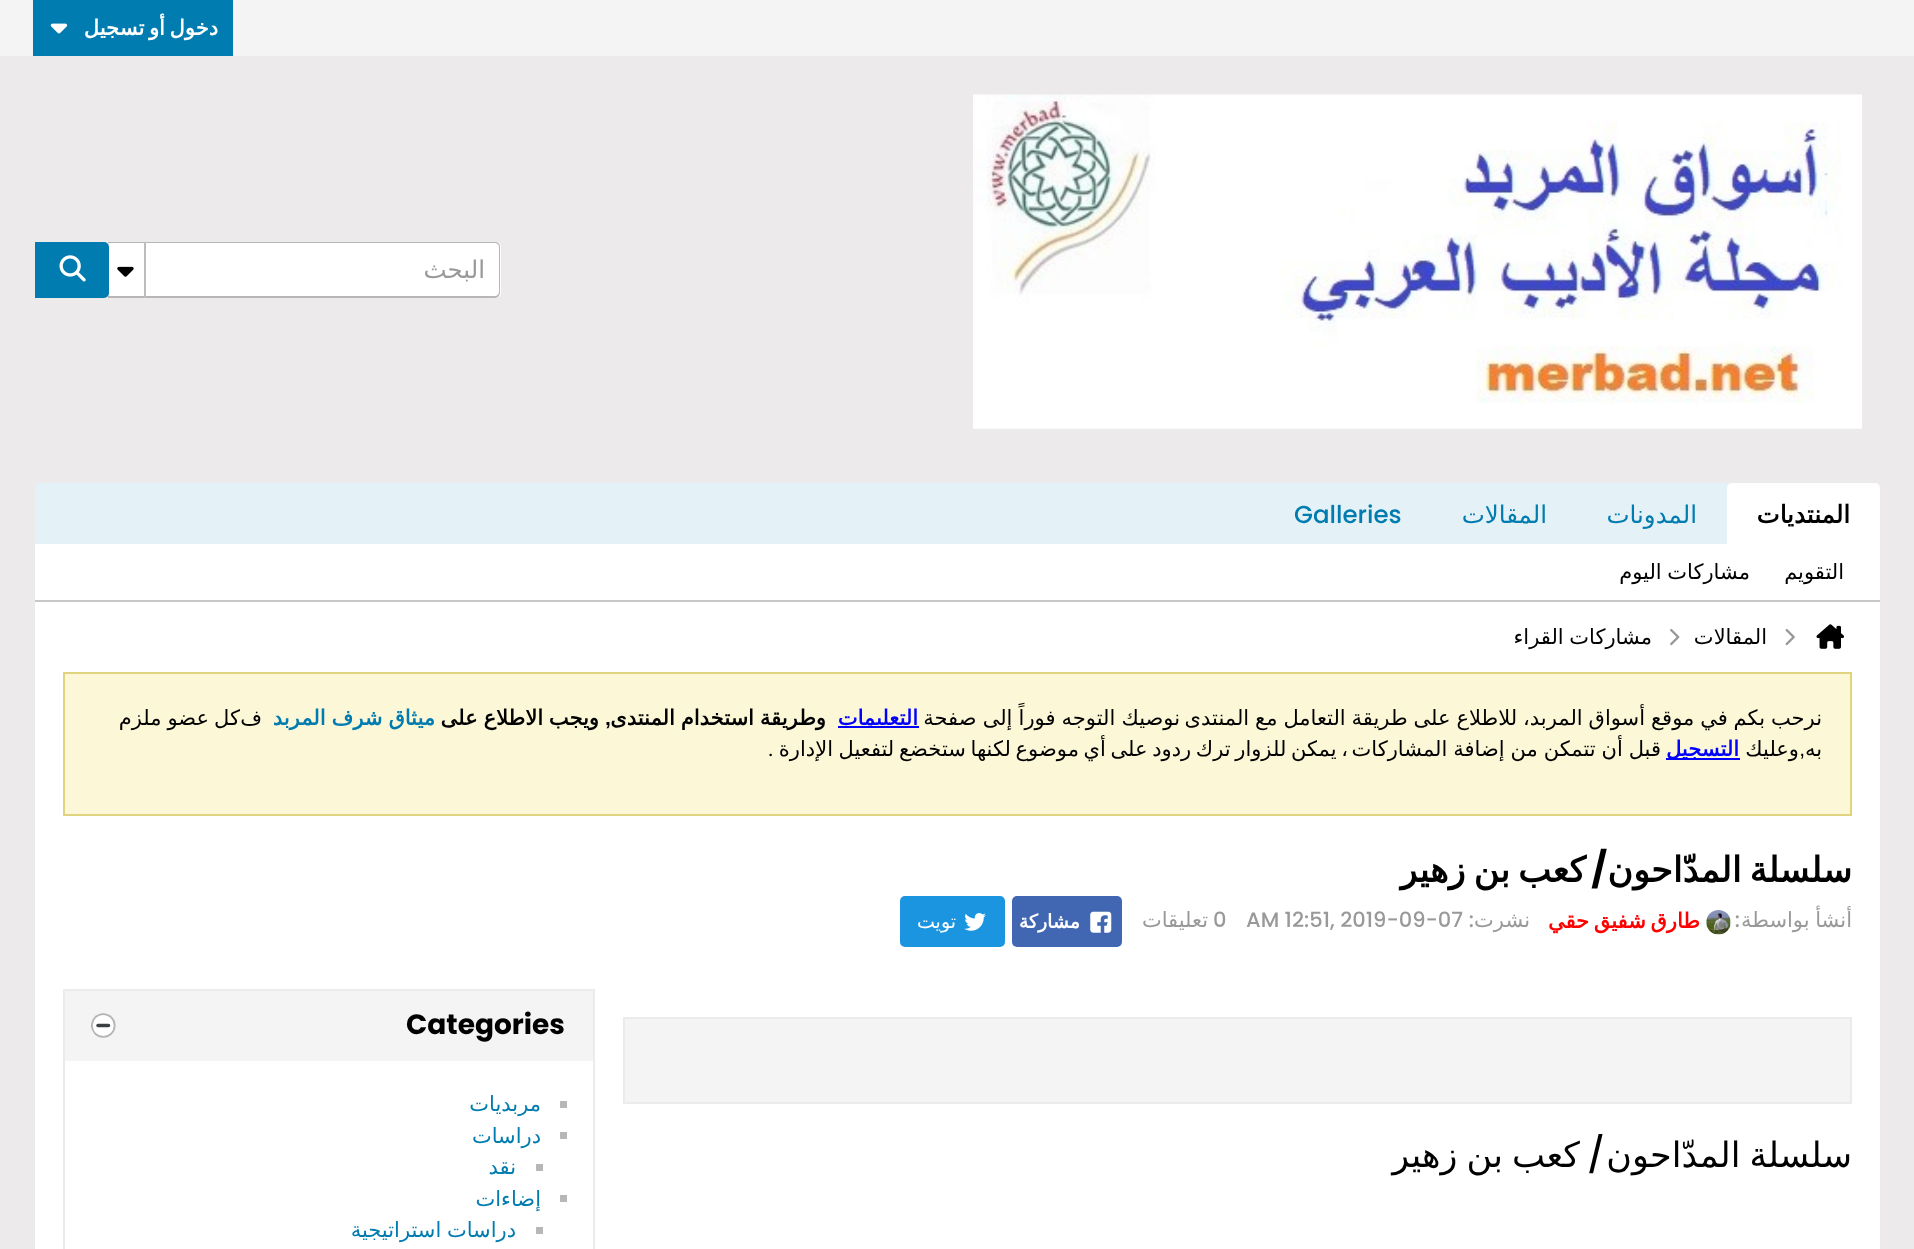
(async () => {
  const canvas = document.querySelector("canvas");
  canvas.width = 1914;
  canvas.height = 1249;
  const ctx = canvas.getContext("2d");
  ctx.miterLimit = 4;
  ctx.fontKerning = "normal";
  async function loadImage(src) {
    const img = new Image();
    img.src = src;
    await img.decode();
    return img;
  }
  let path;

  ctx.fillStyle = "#eceaea";
  ctx.fillRect(0, 0, 1914, 1249);
  ctx.fillStyle = "#f5f4f4";
  ctx.fillRect(0, 0, 1914, 56);
  ctx.fillStyle = "#007cb0";
  ctx.fillRect(33, 0, 200, 56);
  ctx.drawImage(await loadImage("img/1.png"), 50, 23, 18, 11);
  ctx.drawImage(await loadImage("img/2.png"), 973, 94, 889, 335);
  ctx.fillStyle = "#ffffff";
  ctx.beginPath();
  ctx.roundRect(109, 242, 392, 56, [0, 5, 5, 0]);
  ctx.fill();
  ctx.fillStyle = "#007cb0";
  ctx.beginPath();
  ctx.roundRect(36, 243, 72, 54, [0, 4, 4, 0]);
  ctx.fill();
  ctx.strokeStyle = "#007cb0";
  ctx.lineWidth = 2;
  ctx.stroke();
  ctx.fillStyle = "#b7b7b7";
  path = new Path2D("M108 242H495C498 242 500 244 500 247V292C500 295 498 298 495 298H108ZM108 243H495C497 243 499 245 499 247V292C499 294 497 296 495 296H108Z");
  ctx.fill(path, "evenodd");
  ctx.fillStyle = "#bdbdbd";
  ctx.fillRect(144, 242, 2, 56);
  ctx.drawImage(await loadImage("img/3.png"), 117, 266, 17, 11);
  ctx.drawImage(await loadImage("img/4.png"), 59, 255, 27, 27);
  ctx.fillStyle = "#e4f1f6";
  ctx.beginPath();
  ctx.roundRect(35, 483, 1845, 61, [5, 5, 0, 0]);
  ctx.fill();
  ctx.fillStyle = "#ffffff";
  ctx.beginPath();
  ctx.roundRect(1727, 483, 153, 61, [5, 5, 0, 0]);
  ctx.fill();
  for (const [x, y, w, h, color] of [
    [35, 544, 1845, 56, "#ffffff"],
    [35, 600, 1845, 2, "#c7c7c8"],
    [35, 602, 1845, 647, "#ffffff"],
  ]) {
    ctx.fillStyle = color;
    ctx.fillRect(x, y, w, h);
  }
  ctx.drawImage(await loadImage("img/5.png"), 1816, 624, 28, 25);
  ctx.drawImage(await loadImage("img/6.png"), 1785, 629, 10, 17);
  ctx.drawImage(await loadImage("img/7.png"), 1670, 629, 10, 17);
  ctx.fillStyle = "#fcf7d7";
  ctx.beginPath();
  ctx.rect(64, 673, 1787, 142);
  ctx.fill();
  ctx.strokeStyle = "#e1d47e";
  ctx.stroke();
  ctx.fillStyle = "#0000ff";
  ctx.fillRect(838, 726, 81, 2);
  ctx.fillRect(1666, 758, 74, 2);
  ctx.drawImage(await loadImage("img/8.png"), 1706, 910, 25, 25);
  ctx.fillStyle = "#4267b2";
  ctx.beginPath();
  ctx.roundRect(1012, 896, 110, 51, 5);
  ctx.fill();
  ctx.drawImage(await loadImage("img/9.png"), 1090, 911, 22, 22);
  ctx.fillStyle = "#1b95e0";
  ctx.beginPath();
  ctx.roundRect(900, 896, 105, 51, 5);
  ctx.fill();
  ctx.drawImage(await loadImage("img/10.png"), 964, 913, 22, 18);
  ctx.fillStyle = "#f5f4f4";
  ctx.beginPath();
  ctx.rect(624, 1018, 1227, 85);
  ctx.fill();
  ctx.strokeStyle = "#eceaea";
  ctx.stroke();
  ctx.strokeRect(64, 990, 530, 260);
  ctx.fillRect(65, 991, 528, 70);
  ctx.drawImage(await loadImage("img/11.png"), 91, 1013, 25, 25);
  for (const [x, y, w, h, color] of [
    [560, 1101, 7, 7, "#b7b7b7"],
    [560, 1132, 7, 7, "#b7b7b7"],
    [536, 1164, 7, 7, "#b7b7b7"],
    [560, 1195, 7, 7, "#b7b7b7"],
    [536, 1227, 7, 7, "#b7b7b7"],
  ]) {
    ctx.fillStyle = color;
    ctx.fillRect(x, y, w, h);
  }
  ctx.wordSpacing = "-2px";
  ctx.direction = "rtl";
  ctx.font = "bold 21px DejaVu Sans";
  ctx.fillStyle = "#ffffff";
  ctx.fillText("دخول أو تسجيل", 218, 35);
  ctx.wordSpacing = "0px";
  ctx.font = "24.5px DejaVu Sans";
  ctx.fillStyle = "#999999";
  ctx.fillText("البحث", 485, 278);
  ctx.font = "bold 24.5px DejaVu Sans";
  ctx.fillStyle = "#000000";
  ctx.fillText("المنتديات", 1850, 523);
  ctx.font = "24.5px DejaVu Sans";
  ctx.fillStyle = "#007cb0";
  ctx.fillText("المدونات", 1697, 523);
  ctx.fillText("المقالات", 1547, 523);
  ctx.direction = "ltr";
  ctx.font = "500 24.5px Poppins";
  ctx.fillText("Galleries", 1294, 523);
  ctx.direction = "rtl";
  ctx.font = "21px DejaVu Sans";
  ctx.fillStyle = "#000000";
  ctx.fillText("التقويم", 1844, 579);
  ctx.wordSpacing = "-1px";
  ctx.fillText("مشاركات اليوم", 1750, 579);
  ctx.wordSpacing = "0px";
  ctx.fillText("المقالات", 1767, 644);
  ctx.wordSpacing = "-1px";
  ctx.fillText("مشاركات القراء", 1652, 644);
  ctx.wordSpacing = "-0.75px";
  ctx.fillText("نرحب بكم في موقع أسواق المربد، للاطلاع على طريقة التعامل مع المنتدى", 1822, 725);
  ctx.wordSpacing = "-0.5px";
  ctx.fillText("نوصيك التوجه فوراً إلى صفحة", 1180, 725);
  ctx.wordSpacing = "0px";
  ctx.font = "bold 21px DejaVu Sans";
  ctx.fillStyle = "#0000ff";
  ctx.fillText("التعليمات", 918, 725);
  ctx.wordSpacing = "-0.75px";
  ctx.fillStyle = "#000000";
  ctx.fillText("وطريقة استخدام المنتدى", 826, 725);
  ctx.wordSpacing = "0px";
  ctx.direction = "ltr";
  ctx.font = "bold 21px Liberation Sans";
  ctx.fillText(",", 605, 725);
  ctx.direction = "rtl";
  ctx.font = "bold 21px DejaVu Sans";
  ctx.fillText("ويجب", 599, 725);
  ctx.wordSpacing = "-0.75px";
  ctx.fillText("الاطلاع على", 543, 725);
  ctx.fillStyle = "#007cb0";
  ctx.fillText("ميثاق شرف المربد", 435, 725);
  ctx.wordSpacing = "0px";
  ctx.font = "21px DejaVu Sans";
  ctx.fillStyle = "#000000";
  ctx.fillText("ف", 262, 725);
  ctx.fillText("كل", 240, 725);
  ctx.wordSpacing = "-0.75px";
  ctx.fillText("عضو ملزم", 209, 725);
  ctx.wordSpacing = "0px";
  ctx.fillText("به", 1822, 756);
  ctx.font = "21px Liberation Sans";
  ctx.fillText(",", 1805, 756);
  ctx.font = "21px DejaVu Sans";
  ctx.fillText("وعليك", 1799, 756);
  ctx.font = "bold 21px DejaVu Sans";
  ctx.fillStyle = "#0000ff";
  ctx.fillText("التسجيل", 1739, 756);
  ctx.wordSpacing = "-0.75px";
  ctx.font = "21px DejaVu Sans";
  ctx.fillStyle = "#000000";
  ctx.fillText("قبل أن تتمكن من إضافة المشاركات", 1661, 756);
  ctx.wordSpacing = "-2px";
  ctx.fillText("، يمكن للزوار ترك ردود على أي موضوع لكنها ستخضع لتفعيل", 1348, 756);
  ctx.wordSpacing = "0px";
  ctx.fillText("الإدارة", 833, 756);
  ctx.direction = "ltr";
  ctx.font = "21px Carlito";
  ctx.fillText(".", 768, 756);
  ctx.wordSpacing = "-3px";
  ctx.direction = "rtl";
  ctx.font = "bold 35px DejaVu Sans";
  ctx.fillText("سلسلة المدّاحون", 1852, 882);
  ctx.fillText("كعب بن زهير", 1586, 882);
  ctx.wordSpacing = "0px";
  ctx.font = "bold 35px Poppins";
  ctx.fillText("/", 1607, 882);
  ctx.wordSpacing = "-1px";
  ctx.font = "21px DejaVu Sans";
  ctx.fillStyle = "#999999";
  ctx.fillText("أنشأ بواسطة", 1852, 927);
  ctx.wordSpacing = "0px";
  ctx.font = "500 21px Poppins";
  ctx.fillText(":", 1740, 927);
  ctx.wordSpacing = "-2px";
  ctx.font = "bold 21px DejaVu Sans";
  ctx.fillStyle = "#ff0000";
  ctx.fillText("طارق شفيق حقي", 1700, 928);
  ctx.wordSpacing = "0px";
  ctx.font = "21px DejaVu Sans";
  ctx.fillStyle = "#999999";
  ctx.fillText("نشرت", 1530, 927);
  ctx.font = "500 21px Poppins";
  ctx.fillText(":", 1474, 927);
  ctx.direction = "ltr";
  ctx.fillText("AM 12:51, 2019-09-07", 1246, 927);
  ctx.fillText("0", 1213, 927);
  ctx.direction = "rtl";
  ctx.font = "21px DejaVu Sans";
  ctx.fillText("تعليقات", 1208, 927);
  ctx.font = "bold 19px DejaVu Sans";
  ctx.fillStyle = "#ffffff";
  ctx.fillText("مشاركة", 1080, 928);
  ctx.font = "19px DejaVu Sans";
  ctx.fillText("تويت", 956, 928);
  ctx.wordSpacing = "-2px";
  ctx.font = "35px DejaVu Sans";
  ctx.fillStyle = "#000000";
  ctx.fillText("سلسلة المدّاحون", 1852, 1167);
  ctx.wordSpacing = "0px";
  ctx.font = "500 35px Poppins";
  ctx.fillText("/", 1605, 1167);
  ctx.wordSpacing = "-2px";
  ctx.font = "35px DejaVu Sans";
  ctx.fillText("كعب بن زهير", 1580, 1167);
  ctx.wordSpacing = "0px";
  ctx.direction = "ltr";
  ctx.font = "bold 28px Poppins";
  ctx.fillText("Categories", 406, 1034);
  ctx.direction = "rtl";
  ctx.font = "21px DejaVu Sans";
  ctx.fillStyle = "#007cb0";
  for (const [text, x, y] of [
    ["مربديات", 541, 1111],
    ["دراسات", 541, 1143],
    ["نقد", 516, 1174],
    ["إضاءات", 541, 1206],
  ]) {
    ctx.fillText(text, x, y);
  }
  ctx.wordSpacing = "-1px";
  ctx.fillText("دراسات استراتيجية", 516, 1237);
})();
